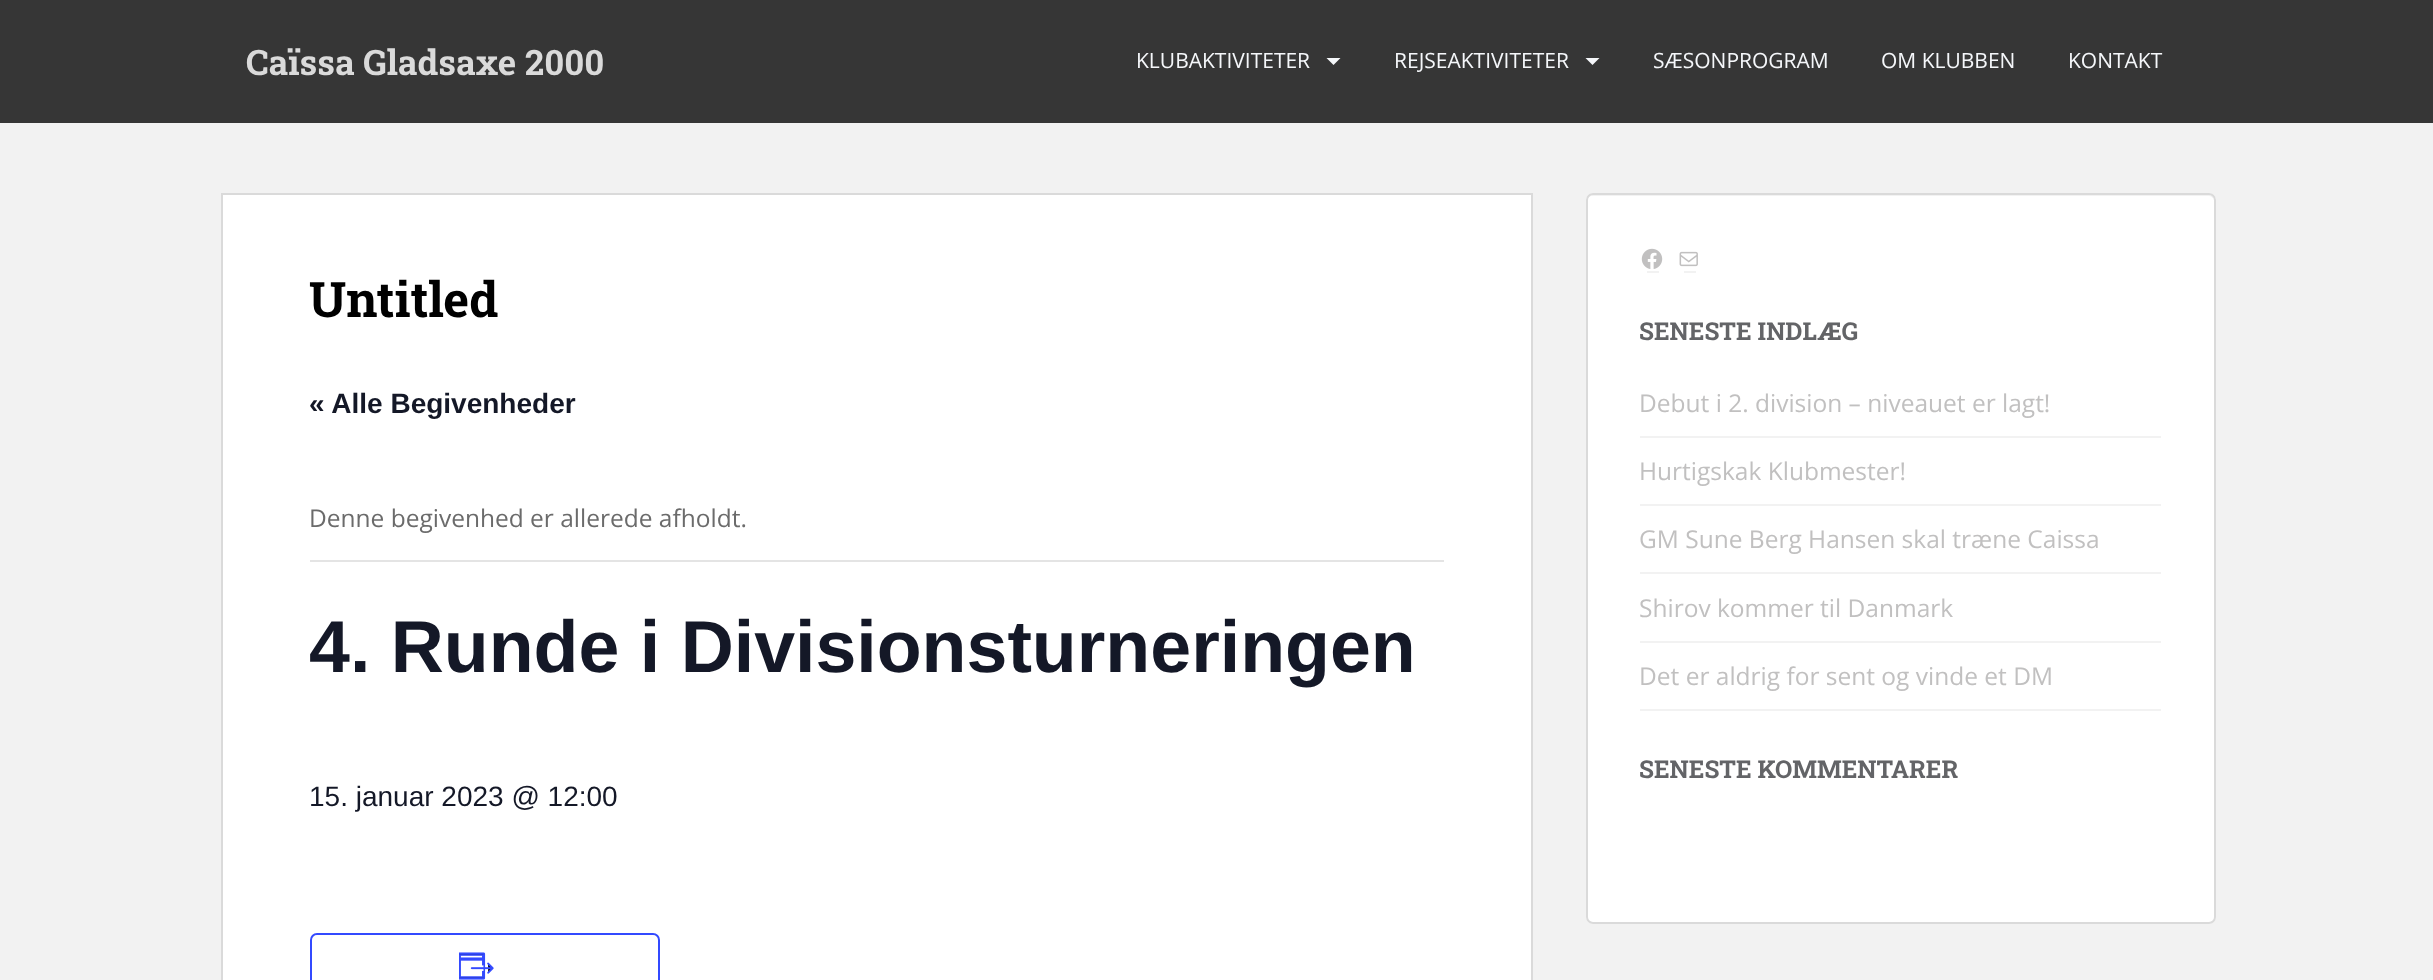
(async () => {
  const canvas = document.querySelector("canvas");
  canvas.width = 2433;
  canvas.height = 980;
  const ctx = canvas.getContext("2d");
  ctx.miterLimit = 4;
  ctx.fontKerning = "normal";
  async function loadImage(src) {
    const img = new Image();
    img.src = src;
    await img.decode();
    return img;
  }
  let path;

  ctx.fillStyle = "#f2f2f2";
  ctx.fillRect(0, 0, 2433, 980);
  ctx.fillStyle = "#363636";
  ctx.fillRect(0, 0, 2433, 123);
  ctx.fillStyle = "#f5f7fa";
  path = new Path2D("M1326.5 58H1340.5L1333.5 65Z");
  ctx.fill(path);
  path = new Path2D("M1585.5 58H1599.5L1592.5 65Z");
  ctx.fill(path);
  ctx.fillStyle = "#ffffff";
  ctx.beginPath();
  ctx.rect(222, 194, 1310, 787);
  ctx.fill();
  ctx.strokeStyle = "#dadada";
  ctx.lineWidth = 2;
  ctx.stroke();
  ctx.fillStyle = "#e4e4e4";
  ctx.fillRect(310, 560, 1134, 2);
  ctx.beginPath();
  ctx.roundRect(311, 934, 348, 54, 6);
  ctx.strokeStyle = "#334aff";
  ctx.stroke();
  ctx.drawImage(await loadImage("img/1.png"), 459, 952, 35, 28);
  ctx.fillStyle = "#ffffff";
  ctx.beginPath();
  ctx.roundRect(1586, 193, 630, 731, 7);
  ctx.fill();
  ctx.fillStyle = "#f2f2f2";
  path = new Path2D("M1592 196H2208C2211 196 2214 198 2214 201C2214 198 2213 194 2209 194H1592C1588 194 1587 198 1587 201C1587 198 1590 196 1592 196Z");
  ctx.fill(path);
  ctx.beginPath();
  ctx.roundRect(1587, 194, 628, 729, 6);
  ctx.strokeStyle = "#dadada";
  ctx.stroke();
  ctx.fillRect(1647, 271, 12, 2);
  ctx.drawImage(await loadImage("img/2.png"), 1641, 248, 22, 21);
  ctx.fillRect(1684, 271, 12, 2);
  ctx.drawImage(await loadImage("img/3.png"), 1679, 251, 19, 16);
  for (const [x, y, w, h, color] of [
    [1640, 436, 521, 2, "#f2f2f2"],
    [1640, 504, 521, 2, "#f2f2f2"],
    [1640, 572, 521, 2, "#f2f2f2"],
    [1640, 641, 521, 2, "#f2f2f2"],
    [1640, 709, 521, 2, "#f2f2f2"],
  ]) {
    ctx.fillStyle = color;
    ctx.fillRect(x, y, w, h);
  }
  ctx.font = "bold 35px Roboto Slab";
  ctx.fillStyle = "#dadada";
  ctx.fillText("Caïssa Gladsaxe 2000", 246, 75);
  ctx.font = "21px Open Sans";
  ctx.fillStyle = "#f5f7fa";
  for (const [text, x, y] of [
    ["KLUBAKTIVITETER", 1136, 68],
    ["REJSEAKTIVITETER", 1394, 68],
    ["SÆSONPROGRAM", 1653, 68],
    ["OM KLUBBEN", 1881, 68],
    ["KONTAKT", 2068, 68],
  ]) {
    ctx.fillText(text, x, y);
  }
  ctx.font = "bold 49px Roboto Slab";
  ctx.fillStyle = "#000000";
  ctx.fillText("Untitled", 309, 317);
  ctx.font = "bold 28px Liberation Sans";
  ctx.fillStyle = "#141827";
  ctx.fillText("« Alle Begivenheder", 309, 413);
  ctx.font = "24.5px Open Sans";
  ctx.fillStyle = "#6b6b6b";
  ctx.fillText("Denne begivenhed er allerede afholdt.", 309, 527);
  ctx.font = "bold 73.5px Liberation Sans";
  ctx.fillStyle = "#141827";
  ctx.fillText("4. Runde i Divisionsturneringen", 309, 672);
  ctx.font = "28px Liberation Sans";
  ctx.fillText("15. januar 2023 @ 12:00", 309, 806);
  ctx.font = "bold 24.5px Roboto Slab";
  ctx.fillStyle = "#636467";
  ctx.fillText("SENESTE INDLÆG", 1639, 340);
  ctx.font = "24.5px Open Sans";
  ctx.fillStyle = "#c1c0c0";
  for (const [text, x, y] of [
    ["Debut i 2. division – niveauet er lagt!", 1639, 412],
    ["Hurtigskak Klubmester!", 1639, 480],
    ["GM Sune Berg Hansen skal træne Caissa", 1639, 548],
    ["Shirov kommer til Danmark", 1639, 617],
    ["Det er aldrig for sent og vinde et DM", 1639, 685],
  ]) {
    ctx.fillText(text, x, y);
  }
  ctx.font = "bold 24.5px Roboto Slab";
  ctx.fillStyle = "#636467";
  ctx.fillText("SENESTE KOMMENTARER", 1639, 778);
})();
